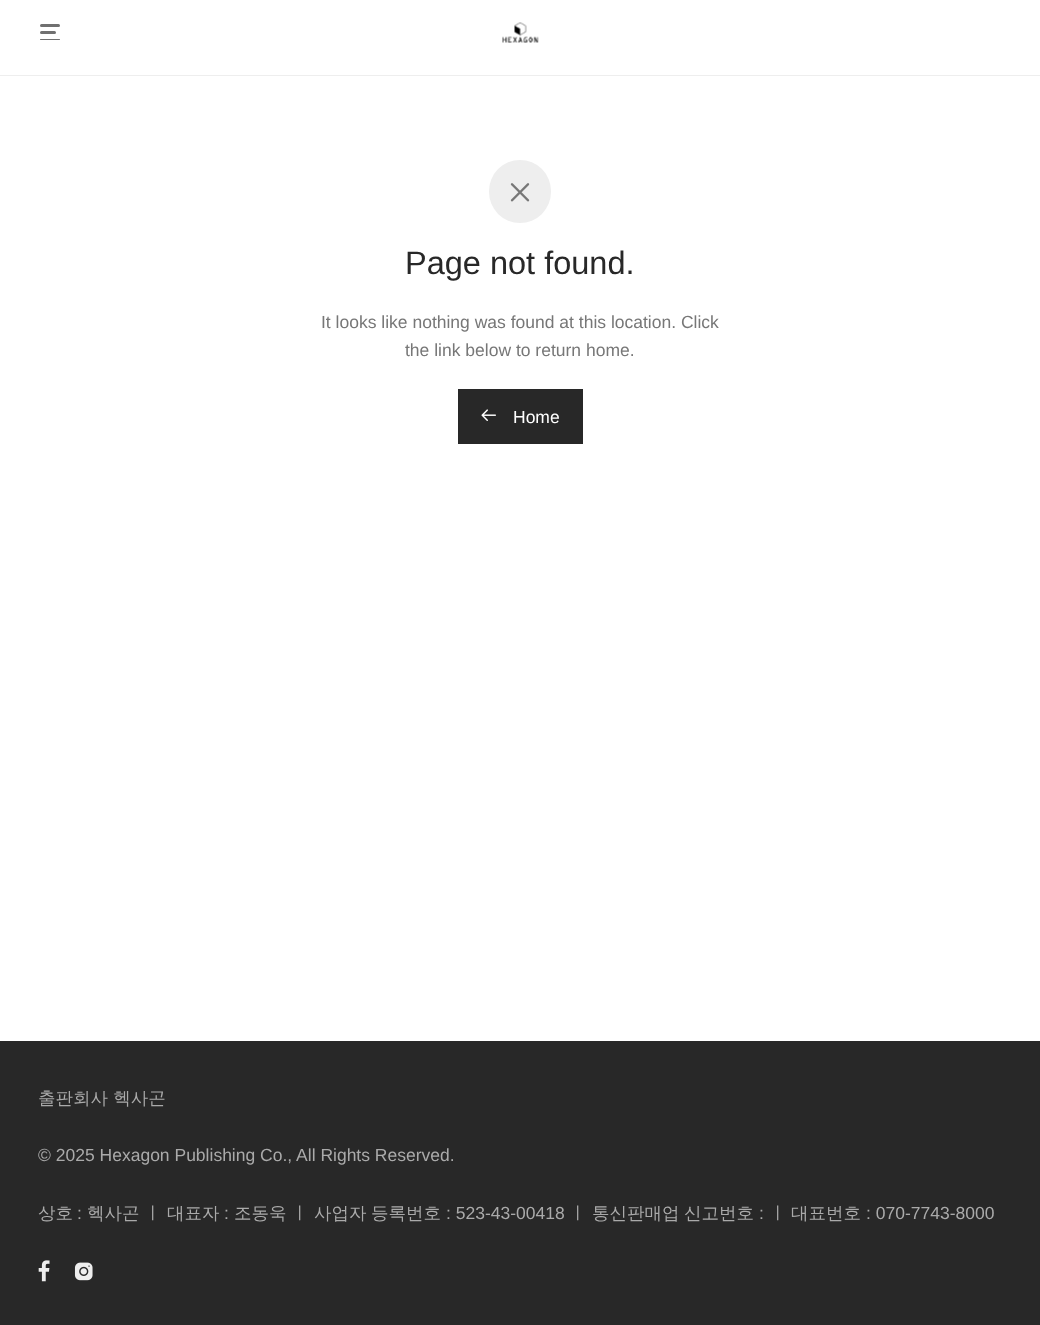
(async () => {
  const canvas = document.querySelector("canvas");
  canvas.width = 1040;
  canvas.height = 1325;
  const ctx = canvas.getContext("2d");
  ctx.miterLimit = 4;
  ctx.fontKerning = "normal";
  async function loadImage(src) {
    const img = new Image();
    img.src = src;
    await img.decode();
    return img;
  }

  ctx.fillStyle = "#ffffff";
  ctx.fillRect(0, 0, 1040, 1325);
  ctx.fillStyle = "#eeeeee";
  ctx.fillRect(0, 75, 1040, 1);
  ctx.fillStyle = "#707070";
  ctx.beginPath();
  ctx.roundRect(40, 24, 20, 3, 1.5);
  ctx.fill();
  ctx.beginPath();
  ctx.roundRect(40, 31, 16, 3, 1.5);
  ctx.fill();
  ctx.beginPath();
  ctx.roundRect(40, 39, 20, 1, 0.5);
  ctx.fill();
  ctx.drawImage(await loadImage("img/1.png"), 502, 22, 37, 21);
  ctx.fillStyle = "#eeeeee";
  ctx.beginPath();
  ctx.roundRect(489, 160, 62, 63, 31);
  ctx.fill();
  ctx.drawImage(await loadImage("img/2.png"), 510, 183, 20, 19);
  ctx.fillStyle = "#282828";
  ctx.fillRect(458, 389, 125, 55);
  ctx.drawImage(await loadImage("img/3.png"), 481, 409, 15, 12);
  ctx.fillRect(0, 1041, 1040, 284);
  ctx.drawImage(await loadImage("img/4.png"), 38, 1260, 12, 22);
  ctx.drawImage(await loadImage("img/5.png"), 74, 1262, 19, 19);
  ctx.font = "32.5px Liberation Sans";
  ctx.fillText("Page not found.", 405, 274);
  ctx.font = "17.5px Liberation Sans";
  ctx.fillStyle = "#777777";
  ctx.fillText("It looks like nothing was found at this location. Click", 321, 328);
  ctx.fillText("the link below to return home.", 405, 356);
  ctx.fillStyle = "#ffffff";
  ctx.fillText("Home", 513, 423);
  ctx.font = "500 17.5px WenQuanYi Zen Hei";
  ctx.fillStyle = "#aaaaaa";
  ctx.fillText("출판회사 헥사곤", 38, 1104);
  ctx.font = "17.5px Liberation Sans";
  ctx.fillText("© 2025 Hexagon Publishing Co., All Rights Reserved.", 38, 1161);
  ctx.font = "500 17.5px WenQuanYi Zen Hei";
  ctx.fillText("상호", 38, 1219);
  ctx.font = "17.5px Liberation Sans";
  ctx.fillText(":", 77, 1219);
  ctx.font = "500 17.5px WenQuanYi Zen Hei";
  for (const [text, x, y] of [
    ["헥사곤", 87, 1219],
    ["ㅣ", 144, 1219],
    ["대표자", 167, 1219],
  ]) {
    ctx.fillText(text, x, y);
  }
  ctx.font = "17.5px Liberation Sans";
  ctx.fillText(":", 224, 1219);
  ctx.font = "500 17.5px WenQuanYi Zen Hei";
  for (const [text, x, y] of [
    ["조동욱", 234, 1219],
    ["ㅣ", 291, 1219],
    ["사업자", 314, 1219],
    ["등록번호", 371, 1219],
  ]) {
    ctx.fillText(text, x, y);
  }
  ctx.font = "17.5px Liberation Sans";
  ctx.fillText(": 523-43-00418", 446, 1219);
  ctx.font = "500 17.5px WenQuanYi Zen Hei";
  for (const [text, x, y] of [
    ["ㅣ", 569, 1219],
    ["통신판매업", 592, 1219],
    ["신고번호", 684, 1219],
  ]) {
    ctx.fillText(text, x, y);
  }
  ctx.font = "17.5px Liberation Sans";
  ctx.fillText(":", 759, 1219);
  ctx.font = "500 17.5px WenQuanYi Zen Hei";
  ctx.fillText("ㅣ", 769, 1219);
  ctx.fillText("대표번호", 791, 1219);
  ctx.font = "17.5px Liberation Sans";
  ctx.fillText(": 070-7743-8000", 866, 1219);
})();
